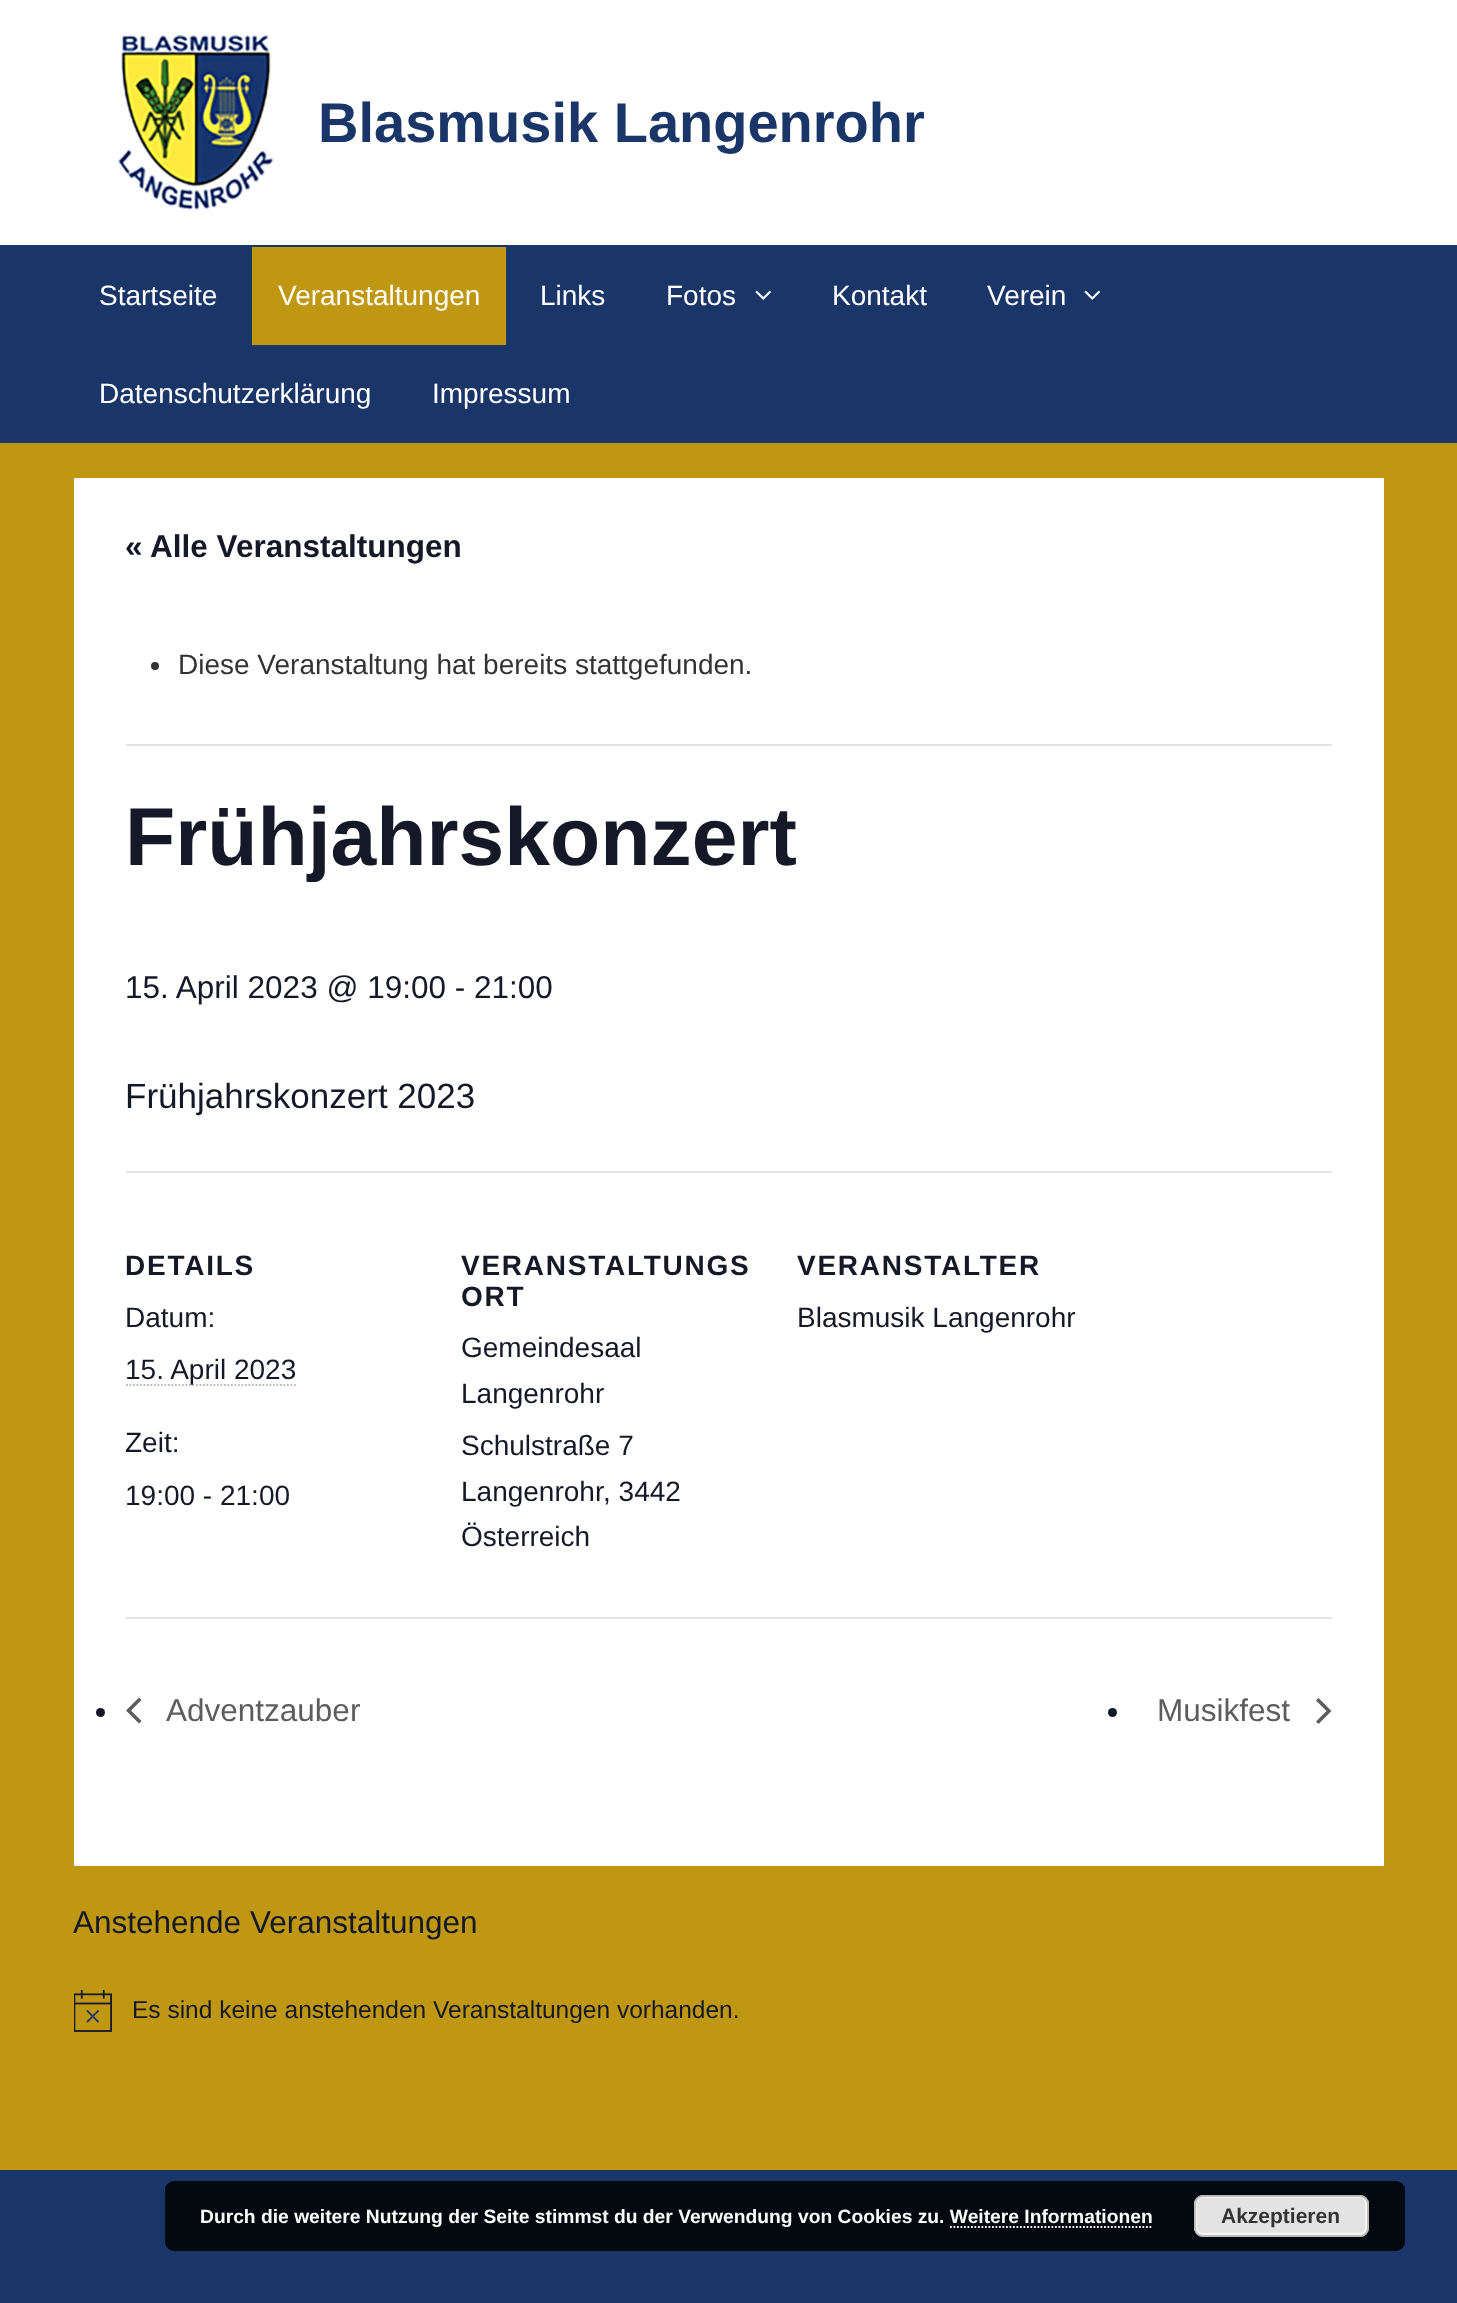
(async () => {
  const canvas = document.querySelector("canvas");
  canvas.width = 1457;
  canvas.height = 2303;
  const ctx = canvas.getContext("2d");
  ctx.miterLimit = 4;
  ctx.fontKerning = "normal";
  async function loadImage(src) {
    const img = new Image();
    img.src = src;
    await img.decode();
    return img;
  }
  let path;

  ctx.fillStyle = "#c09710";
  ctx.fillRect(0, 0, 1457, 2303);
  ctx.fillStyle = "#ffffff";
  ctx.fillRect(0, 0, 1457, 245);
  ctx.drawImage(await loadImage("img/1.png"), 118, 35, 156, 175);
  ctx.fillStyle = "#1a3568";
  ctx.fillRect(0, 245, 1457, 198);
  ctx.fillStyle = "#c09710";
  ctx.fillRect(252, 247, 254, 98);
  ctx.drawImage(await loadImage("img/2.png"), 755, 290, 16, 10);
  ctx.drawImage(await loadImage("img/2.png"), 1084, 290, 16, 10);
  ctx.fillStyle = "#ffffff";
  ctx.fillRect(74, 478, 1310, 1388);
  ctx.fillStyle = "#e4e4e4";
  ctx.fillRect(126, 744, 1206, 2);
  ctx.fillStyle = "#333333";
  ctx.beginPath();
  ctx.arc(155, 666, 4, 0, Math.PI * 2);
  ctx.fill();
  ctx.fillStyle = "#e4e4e4";
  ctx.fillRect(126, 1171, 1206, 2);
  path = new Path2D("M126 1385H297.5");
  ctx.strokeStyle = "#bbbbbb";
  ctx.lineWidth = 1.8;
  ctx.setLineDash([1.75, 1.75]);
  ctx.stroke(path);
  ctx.fillRect(126, 1617, 1206, 2);
  ctx.fillStyle = "#141827";
  ctx.beginPath();
  ctx.arc(100.5, 1712.5, 4.5, 0, Math.PI * 2);
  ctx.fill();
  ctx.fillStyle = "#5d5d5d";
  path = new Path2D("M141.5 1721L139 1723.5L126 1710.5L139 1697.5L141.5 1700L131 1710.5Z");
  ctx.fill(path);
  ctx.fillStyle = "#141827";
  ctx.beginPath();
  ctx.arc(1112.5, 1712.5, 4.5, 0, Math.PI * 2);
  ctx.fill();
  ctx.fillStyle = "#5d5d5d";
  path = new Path2D("M1316 1700.5L1318.5 1698L1331.5 1711L1318.5 1724L1316 1721.5L1326.5 1711Z");
  ctx.fill(path);
  ctx.drawImage(await loadImage("img/3.png"), 74, 1990, 38, 42);
  ctx.fillStyle = "#1a3568";
  ctx.fillRect(0, 2170, 1457, 133);
  ctx.fillStyle = "rgba(0, 0, 0, 0.85)";
  ctx.beginPath();
  ctx.roundRect(165, 2181, 1240, 70, 9);
  ctx.fill();
  ctx.fillStyle = "#e3e3e3";
  ctx.beginPath();
  ctx.roundRect(1194, 2195, 175, 42, 9);
  ctx.fill();
  ctx.beginPath();
  ctx.roundRect(1196, 2197, 170, 37, 6);
  ctx.strokeStyle = "#f6f6f6";
  ctx.lineWidth = 2;
  ctx.setLineDash([]);
  ctx.stroke();
  ctx.beginPath();
  ctx.roundRect(1195, 2196, 173, 40, 8);
  ctx.strokeStyle = "#bbbbbb";
  ctx.stroke();
  path = new Path2D("M950 2227H1153");
  ctx.strokeStyle = "#ffffff";
  ctx.lineWidth = 1.8;
  ctx.setLineDash([1.75, 1.75]);
  ctx.stroke(path);
  ctx.font = "bold 56px Liberation Sans";
  ctx.fillStyle = "#1a3568";
  ctx.fillText("Blasmusik Langenrohr", 318, 142);
  ctx.font = "28px Liberation Sans";
  ctx.fillStyle = "#ffffff";
  for (const [text, x, y] of [
    ["Startseite", 99, 305],
    ["Veranstaltungen", 278, 305],
    ["Links", 540, 305],
    ["Fotos", 666, 305],
    ["Kontakt", 832, 305],
    ["Verein", 987, 305],
    ["Datenschutzerklärung", 99, 403],
    ["Impressum", 432, 403],
  ]) {
    ctx.fillText(text, x, y);
  }
  ctx.font = "bold 31.5px Liberation Sans";
  ctx.fillStyle = "#141827";
  ctx.fillText("« Alle Veranstaltungen", 125, 557);
  ctx.font = "28px Liberation Sans";
  ctx.fillStyle = "#333333";
  ctx.fillText("Diese Veranstaltung hat bereits stattgefunden.", 178, 674);
  ctx.font = "bold 82.25px Liberation Sans";
  ctx.fillStyle = "#141827";
  ctx.fillText("Frühjahrskonzert", 125, 865);
  ctx.font = "31.5px Liberation Sans";
  ctx.fillText("15. April 2023 @ 19:00 - 21:00", 125, 998);
  ctx.font = "35px Liberation Sans";
  ctx.fillText("Frühjahrskonzert 2023", 125, 1108);
  ctx.letterSpacing = "1.75px";
  ctx.font = "bold 28px Liberation Sans";
  ctx.fillText("DETAILS", 125, 1275);
  ctx.letterSpacing = "0px";
  ctx.font = "28px Liberation Sans";
  for (const [text, x, y] of [
    ["Datum:", 125, 1327],
    ["15. April 2023", 125, 1379],
    ["Zeit:", 125, 1452],
    ["19:00 - 21:00", 125, 1505],
  ]) {
    ctx.fillText(text, x, y);
  }
  ctx.letterSpacing = "1.75px";
  ctx.font = "bold 28px Liberation Sans";
  ctx.fillText("VERANSTALTUNGS", 461, 1275);
  ctx.fillText("ORT", 461, 1306);
  ctx.letterSpacing = "0px";
  ctx.font = "28px Liberation Sans";
  for (const [text, x, y] of [
    ["Gemeindesaal", 461, 1357],
    ["Langenrohr", 461, 1403],
    ["Schulstraße 7", 461, 1455],
    ["Langenrohr", 461, 1501],
    [", 3442", 603, 1501],
    ["Österreich", 461, 1546],
  ]) {
    ctx.fillText(text, x, y);
  }
  ctx.letterSpacing = "1.75px";
  ctx.font = "bold 28px Liberation Sans";
  ctx.fillText("VERANSTALTER", 797, 1275);
  ctx.letterSpacing = "0px";
  ctx.font = "28px Liberation Sans";
  ctx.fillText("Blasmusik Langenrohr", 797, 1327);
  ctx.font = "31.5px Liberation Sans";
  ctx.fillStyle = "#5d5d5d";
  ctx.fillText("Adventzauber", 166, 1721);
  ctx.fillText("Musikfest", 1157, 1721);
  ctx.fillStyle = "#141827";
  ctx.fillText("Anstehende Veranstaltungen", 73, 1933);
  ctx.font = "24.5px Liberation Sans";
  ctx.fillText("Es sind keine anstehenden Veranstaltungen vorhanden.", 132, 2018);
  ctx.font = "bold 19.25px Liberation Sans";
  ctx.fillStyle = "#ffffff";
  ctx.fillText("Durch die weitere Nutzung der Seite stimmst du der Verwendung von Cookies zu. Weitere Informationen", 200, 2223);
  ctx.font = "bold 21px Liberation Sans";
  ctx.fillStyle = "#333333";
  ctx.fillText("Akzeptieren", 1221, 2223);
})();
